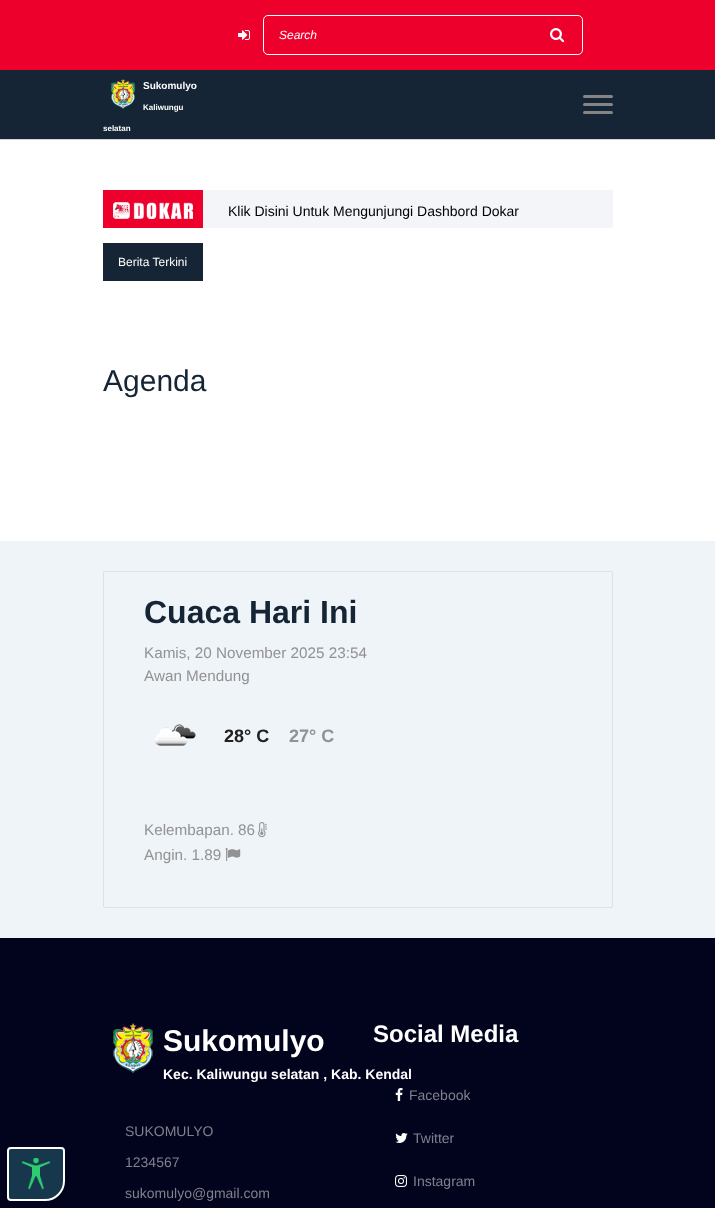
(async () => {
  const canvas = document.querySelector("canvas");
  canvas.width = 715;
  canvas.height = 1208;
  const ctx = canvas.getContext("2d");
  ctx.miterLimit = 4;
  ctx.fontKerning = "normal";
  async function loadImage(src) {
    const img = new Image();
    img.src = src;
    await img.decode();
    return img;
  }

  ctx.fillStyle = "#ffffff";
  ctx.fillRect(0, 0, 715, 1208);
  ctx.fillStyle = "#ee002d";
  ctx.fillRect(0, 0, 715, 70);
  ctx.drawImage(await loadImage("img/1.png"), 238, 30, 12, 10);
  ctx.beginPath();
  ctx.roundRect(263.5, 15.5, 319, 39, 4.5);
  ctx.strokeStyle = "#ffffff";
  ctx.stroke();
  ctx.drawImage(await loadImage("img/2.png"), 550, 28, 15, 15);
  ctx.fillStyle = "#152535";
  ctx.fillRect(0, 70, 715, 69);
  ctx.fillStyle = "#d0d5d8";
  ctx.fillRect(0, 139, 715, 1);
  ctx.drawImage(await loadImage("img/3.png"), 111, 79, 24, 30);
  ctx.fillStyle = "#858585";
  ctx.beginPath();
  ctx.roundRect(583, 95, 30, 3, 1.5);
  ctx.fill();
  ctx.beginPath();
  ctx.roundRect(583, 103, 30, 3, 1.5);
  ctx.fill();
  ctx.beginPath();
  ctx.roundRect(583, 111, 30, 3, 1.5);
  ctx.fill();
  ctx.fillStyle = "#ee002d";
  ctx.fillRect(103, 190, 100, 38);
  ctx.drawImage(await loadImage("img/4.png"), 113, 202, 80, 17);
  for (const [x, y, w, h, color] of [
    [203, 190, 410, 38, "#f3f5f8"],
    [103, 243, 100, 38, "#152535"],
    [0, 541, 715, 397, "#eff4f9"],
  ]) {
    ctx.fillStyle = color;
    ctx.fillRect(x, y, w, h);
  }
  ctx.beginPath();
  ctx.roundRect(103.5, 571.5, 509, 336, 1.5);
  ctx.strokeStyle = "#e0e0e0";
  ctx.stroke();
  ctx.drawImage(await loadImage("img/5.png"), 154, 724, 42, 22);
  ctx.drawImage(await loadImage("img/6.png"), 258, 822, 9, 16);
  ctx.drawImage(await loadImage("img/7.png"), 225, 848, 16, 14);
  ctx.fillStyle = "#02031c";
  ctx.fillRect(0, 938, 715, 270);
  ctx.fillStyle = "#17384c";
  ctx.beginPath();
  ctx.roundRect(8, 1148, 56, 52, [3, 3, 19, 3]);
  ctx.fill();
  ctx.strokeStyle = "#ffffff";
  ctx.lineWidth = 2;
  ctx.stroke();
  ctx.drawImage(await loadImage("img/8.png"), 21, 1158, 30, 32);
  ctx.drawImage(await loadImage("img/9.png"), 113, 1023, 40, 50);
  ctx.drawImage(await loadImage("img/10.png"), 395, 1088, 8, 13);
  ctx.drawImage(await loadImage("img/11.png"), 395, 1133, 13, 10);
  ctx.drawImage(await loadImage("img/12.png"), 395, 1175, 12, 12);
  ctx.font = "italic 12px Liberation Sans";
  ctx.fillStyle = "#ffffff";
  ctx.fillText("Search", 279, 39);
  ctx.font = "bold 10px Liberation Sans";
  ctx.fillText("Sukomulyo", 143, 89);
  ctx.font = "bold 8px Liberation Sans";
  ctx.fillText("Kaliwungu", 143, 110);
  ctx.fillText("selatan", 103, 131);
  ctx.font = "14px Liberation Sans";
  ctx.fillStyle = "#000000";
  ctx.fillText("Klik Disini Untuk Mengunjungi Dashbord Dokar", 228, 216);
  ctx.font = "12px Liberation Sans";
  ctx.fillStyle = "#ffffff";
  ctx.fillText("Berita Terkini", 118, 266);
  ctx.font = "30px Liberation Sans";
  ctx.fillStyle = "#152535";
  ctx.fillText("Agenda", 103, 391);
  ctx.font = "bold 32px Liberation Sans";
  ctx.fillText("Cuaca Hari Ini", 144, 623);
  ctx.font = "15.25px Liberation Sans";
  ctx.fillStyle = "#929292";
  ctx.fillText("Kamis, 20 November 2025 23:54", 144, 658);
  ctx.fillText("Awan Mendung", 144, 681);
  ctx.font = "bold 18px Liberation Sans";
  ctx.fillStyle = "#212121";
  ctx.fillText("28° C", 224, 742);
  ctx.fillStyle = "#929292";
  ctx.fillText("27° C", 289, 742);
  ctx.font = "15.25px Liberation Sans";
  ctx.fillText("Kelembapan. 86", 144, 835);
  ctx.fillText("Angin. 1.89", 144, 860);
  ctx.font = "bold 30px Liberation Sans";
  ctx.fillStyle = "#ffffff";
  ctx.fillText("Sukomulyo", 163, 1051);
  ctx.font = "bold 14px Liberation Sans";
  ctx.fillText("Kec. Kaliwungu selatan , Kab. Kendal", 163, 1079);
  ctx.font = "14px Liberation Sans";
  ctx.fillStyle = "#81818e";
  for (const [text, x, y] of [
    ["SUKOMULYO", 125, 1136],
    ["1234567", 125, 1167],
    ["sukomulyo@gmail.com", 125, 1198],
  ]) {
    ctx.fillText(text, x, y);
  }
  ctx.font = "bold 24px Liberation Sans";
  ctx.fillStyle = "#ffffff";
  ctx.fillText("Social Media", 373, 1042);
  ctx.font = "14px Liberation Sans";
  ctx.fillStyle = "#81818e";
  for (const [text, x, y] of [
    ["Facebook", 409, 1100],
    ["Twitter", 413, 1143],
    ["Instagram", 413, 1186],
  ]) {
    ctx.fillText(text, x, y);
  }
})();
